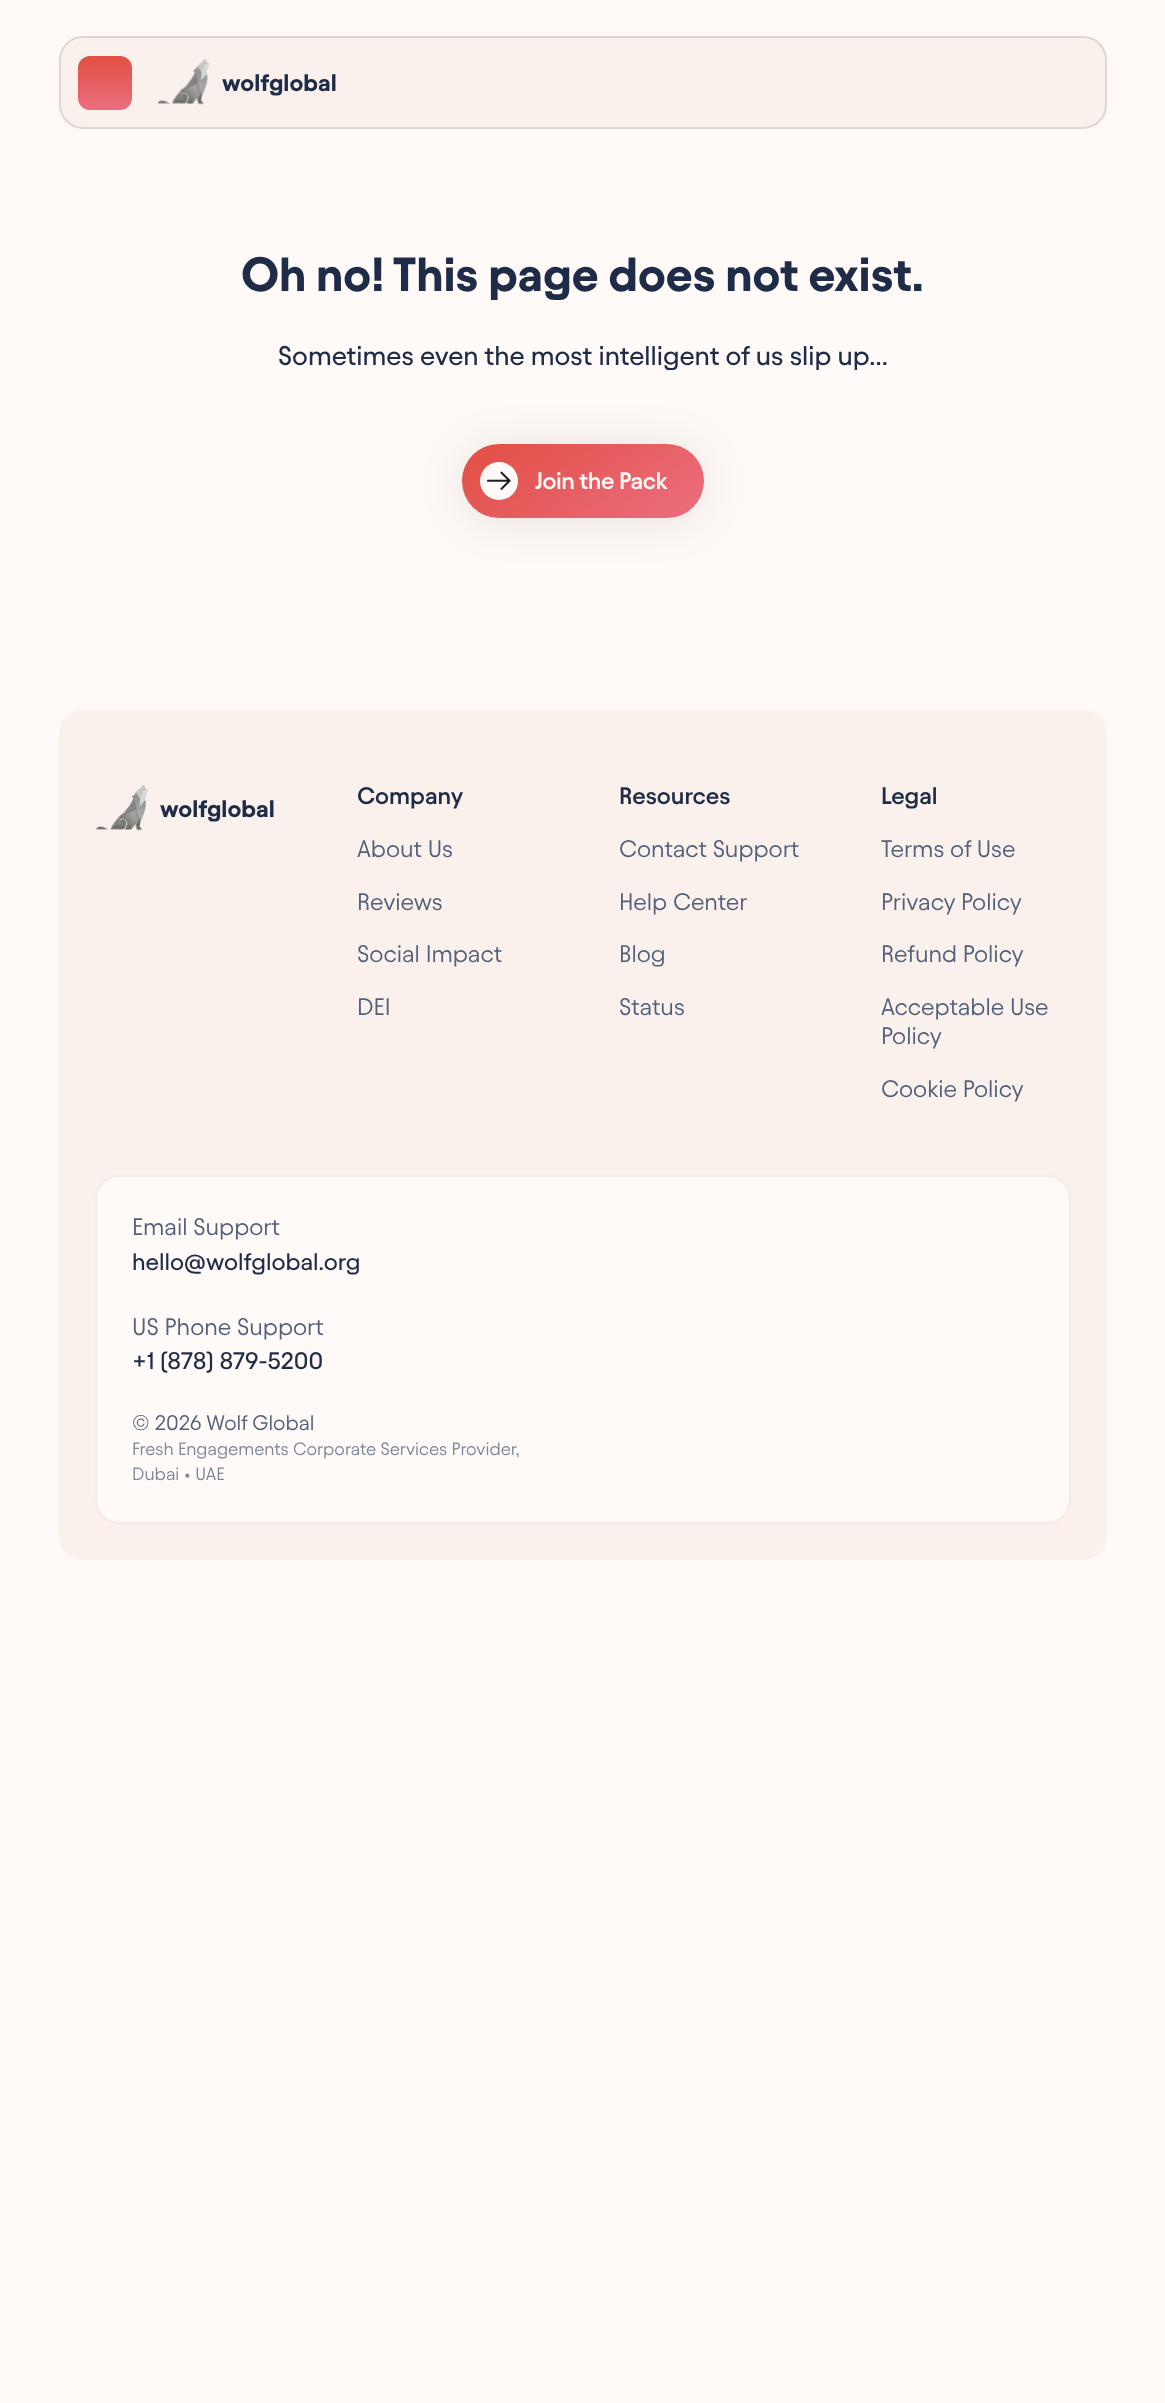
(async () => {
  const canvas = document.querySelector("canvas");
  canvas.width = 1165;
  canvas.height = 2403;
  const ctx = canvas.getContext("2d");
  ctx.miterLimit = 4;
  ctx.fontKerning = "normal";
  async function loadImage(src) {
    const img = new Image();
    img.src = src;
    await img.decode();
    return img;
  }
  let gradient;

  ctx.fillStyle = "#fffaf8";
  ctx.fillRect(0, 0, 1165, 2403);
  ctx.fillStyle = "#faf1ed";
  ctx.beginPath();
  ctx.roundRect(60, 37, 1046, 91, 23);
  ctx.fill();
  ctx.strokeStyle = "#e2d5cf";
  ctx.lineWidth = 2;
  ctx.stroke();
  gradient = ctx.createLinearGradient(105, 56, 105, 110);
  gradient.addColorStop(0, "#e24e42");
  gradient.addColorStop(1, "#eb6e80");
  ctx.fillStyle = gradient;
  ctx.beginPath();
  ctx.roundRect(78, 56, 54, 54, 12);
  ctx.fill();
  ctx.drawImage(await loadImage("img/1.png"), 157, 59, 53, 46);
  ctx.fillStyle = "rgba(0, 0, 0, 0.1)";
  ctx.filter = "blur(22.5px)";
  ctx.beginPath();
  ctx.roundRect(462, 447, 242, 74, 37);
  ctx.fill();
  ctx.filter = "none";
  gradient = ctx.createLinearGradient(528, 400, 638, 562);
  gradient.addColorStop(0, "#e24e42");
  gradient.addColorStop(1, "#eb6e80");
  ctx.fillStyle = gradient;
  ctx.beginPath();
  ctx.roundRect(462, 444, 242, 74, 37);
  ctx.fill();
  ctx.fillStyle = "#fffaf8";
  ctx.beginPath();
  ctx.arc(499, 481, 19, 0, Math.PI * 2);
  ctx.fill();
  ctx.drawImage(await loadImage("img/2.png"), 486, 471, 25, 19);
  ctx.fillStyle = "#faf1ed";
  ctx.beginPath();
  ctx.roundRect(59, 710, 1048, 850, 24);
  ctx.fill();
  ctx.drawImage(await loadImage("img/3.png"), 96, 785, 53, 46);
  ctx.fillStyle = "#fffaf8";
  ctx.beginPath();
  ctx.roundRect(96, 1176, 974, 347, 23);
  ctx.fill();
  ctx.strokeStyle = "#f7e9e3";
  ctx.stroke();
  ctx.font = "bold 24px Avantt";
  ctx.fillStyle = "#1f2c47";
  ctx.fillText("wolfglobal", 222, 91);
  ctx.font = "bold 48px Avantt";
  ctx.fillText("Oh no! This page does not exist.", 241, 291);
  ctx.font = "500 27px Avantt";
  ctx.fillText("Sometimes even the most intelligent of us slip up...", 278, 365);
  ctx.letterSpacing = "-0.4px";
  ctx.font = "600 24px Avantt";
  ctx.fillStyle = "#fffaf8";
  ctx.fillText("Join the Pack", 535, 489);
  ctx.letterSpacing = "0px";
  ctx.font = "bold 24px Avantt";
  ctx.fillStyle = "#1f2c47";
  ctx.fillText("wolfglobal", 160, 817);
  ctx.font = "600 24px Avantt";
  ctx.fillText("Company", 357, 804);
  ctx.font = "24px Avantt";
  ctx.fillStyle = "#525f7a";
  for (const [text, x, y] of [
    ["About Us", 357, 857],
    ["Reviews", 357, 910],
    ["Social Impact", 357, 962],
    ["DEI", 357, 1015],
  ]) {
    ctx.fillText(text, x, y);
  }
  ctx.font = "600 24px Avantt";
  ctx.fillStyle = "#1f2c47";
  ctx.fillText("Resources", 619, 804);
  ctx.font = "24px Avantt";
  ctx.fillStyle = "#525f7a";
  for (const [text, x, y] of [
    ["Contact Support", 619, 857],
    ["Help Center", 619, 910],
    ["Blog", 619, 962],
    ["Status", 619, 1015],
  ]) {
    ctx.fillText(text, x, y);
  }
  ctx.font = "600 24px Avantt";
  ctx.fillStyle = "#1f2c47";
  ctx.fillText("Legal", 881, 804);
  ctx.font = "24px Avantt";
  ctx.fillStyle = "#525f7a";
  for (const [text, x, y] of [
    ["Terms of Use", 881, 857],
    ["Privacy Policy", 881, 910],
    ["Refund Policy", 881, 962],
    ["Acceptable Use", 881, 1015],
    ["Policy", 881, 1044],
    ["Cookie Policy", 881, 1097],
    ["Email Support", 132, 1235],
  ]) {
    ctx.fillText(text, x, y);
  }
  ctx.font = "500 24px Avantt";
  ctx.fillStyle = "#1f2c47";
  ctx.fillText("hello@wolfglobal.org", 132, 1270);
  ctx.font = "24px Avantt";
  ctx.fillStyle = "#525f7a";
  ctx.fillText("US Phone Support", 132, 1335);
  ctx.font = "500 24px Avantt";
  ctx.fillStyle = "#1f2c47";
  ctx.fillText("+1 (878) 879-5200", 132, 1369);
  ctx.font = "21px Avantt";
  ctx.fillStyle = "#525f7a";
  ctx.fillText("© 2026 Wolf Global", 132, 1430);
  ctx.font = "18px Avantt";
  ctx.fillStyle = "#7d869a";
  ctx.fillText("Fresh Engagements Corporate Services Provider,", 132, 1455);
  ctx.fillText("Dubai • UAE", 132, 1480);
})();
